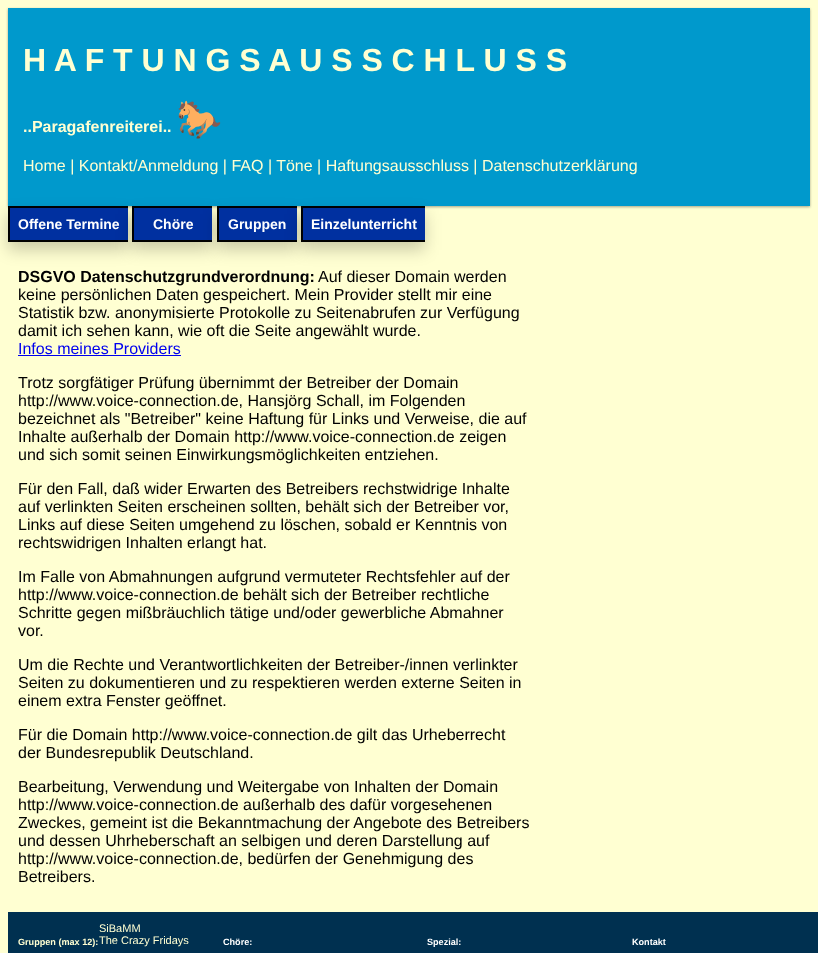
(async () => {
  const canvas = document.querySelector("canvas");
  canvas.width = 818;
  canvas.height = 953;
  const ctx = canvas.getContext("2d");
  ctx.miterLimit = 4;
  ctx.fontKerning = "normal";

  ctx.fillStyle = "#ffffd2";
  ctx.fillRect(0, 0, 818, 953);
  ctx.fillStyle = "rgba(0, 0, 0, 0.24)";
  ctx.filter = "blur(1px)";
  ctx.beginPath();
  ctx.rect(8, 9, 802, 198);
  ctx.fill();
  ctx.filter = "none";
  ctx.fillStyle = "rgba(0, 0, 0, 0.12)";
  ctx.filter = "blur(1.5px)";
  ctx.beginPath();
  ctx.rect(8, 9, 802, 198);
  ctx.fill();
  ctx.filter = "none";
  ctx.fillStyle = "#0099cc";
  ctx.fillRect(8, 8, 802, 198);
  ctx.fillStyle = "rgba(0, 0, 0, 0.2)";
  ctx.filter = "blur(8px)";
  ctx.beginPath();
  ctx.rect(8, 214, 120, 36);
  ctx.fill();
  ctx.filter = "none";
  for (const [x, y, w, h, color] of [
    [10, 208, 118, 32, "#0030a0"],
    [8, 206, 120, 2, "#000000"],
    [8, 240, 120, 2, "#000000"],
    [8, 206, 2, 36, "#000000"],
  ]) {
    ctx.fillStyle = color;
    ctx.fillRect(x, y, w, h);
  }
  ctx.fillStyle = "rgba(0, 0, 0, 0.2)";
  ctx.filter = "blur(8px)";
  ctx.beginPath();
  ctx.rect(132, 214, 80, 36);
  ctx.fill();
  ctx.filter = "none";
  for (const [x, y, w, h, color] of [
    [134, 208, 78, 32, "#0030a0"],
    [132, 206, 80, 2, "#000000"],
    [132, 240, 80, 2, "#000000"],
    [132, 206, 2, 36, "#000000"],
  ]) {
    ctx.fillStyle = color;
    ctx.fillRect(x, y, w, h);
  }
  ctx.fillStyle = "rgba(0, 0, 0, 0.2)";
  ctx.filter = "blur(8px)";
  ctx.beginPath();
  ctx.rect(217, 214, 80, 36);
  ctx.fill();
  ctx.filter = "none";
  for (const [x, y, w, h, color] of [
    [219, 208, 78, 32, "#0030a0"],
    [217, 206, 80, 2, "#000000"],
    [217, 240, 80, 2, "#000000"],
    [217, 206, 2, 36, "#000000"],
  ]) {
    ctx.fillStyle = color;
    ctx.fillRect(x, y, w, h);
  }
  ctx.fillStyle = "rgba(0, 0, 0, 0.2)";
  ctx.filter = "blur(8px)";
  ctx.beginPath();
  ctx.rect(301, 214, 124, 36);
  ctx.fill();
  ctx.filter = "none";
  for (const [x, y, w, h, color] of [
    [303, 208, 122, 32, "#0030a0"],
    [301, 206, 124, 2, "#000000"],
    [301, 240, 124, 2, "#000000"],
    [301, 206, 2, 36, "#000000"],
    [18, 355, 163, 1, "#0000ee"],
    [8, 912, 810, 41, "#003050"],
  ]) {
    ctx.fillStyle = color;
    ctx.fillRect(x, y, w, h);
  }
  ctx.font = "bold 32px Liberation Sans";
  ctx.fillStyle = "#ffffd2";
  ctx.fillText("H A F T U N G S A U S S C H L U S S", 23, 71);
  ctx.font = "bold 16px Liberation Sans";
  ctx.fillText("..Paragafenreiterei..", 23, 132);
  ctx.font = "bold 37px Noto Color Emoji";
  ctx.fillText("🐎", 176, 132);
  ctx.font = "16px Liberation Sans";
  ctx.fillText("Home | Kontakt/Anmeldung | FAQ | Töne | Haftungsausschluss | Datenschutzerklärung", 23, 171);
  ctx.font = "bold 14px Liberation Sans";
  ctx.fillStyle = "#ffffff";
  for (const [text, x, y] of [
    ["Offene Termine", 18, 229],
    ["Chöre", 153, 229],
    ["Gruppen", 228, 229],
    ["Einzelunterricht", 311, 229],
  ]) {
    ctx.fillText(text, x, y);
  }
  ctx.font = "bold 16px Liberation Sans";
  ctx.fillStyle = "#000000";
  ctx.fillText("DSGVO Datenschutzgrundverordnung:", 18, 282);
  ctx.font = "16px Liberation Sans";
  for (const [text, x, y] of [
    ["Auf dieser Domain werden", 318, 282],
    ["keine persönlichen Daten gespeichert. Mein Provider stellt mir eine", 18, 300],
    ["Statistik bzw. anonymisierte Protokolle zu Seitenabrufen zur Verfügung", 18, 318],
    ["damit ich sehen kann, wie oft die Seite angewählt wurde.", 18, 336],
  ]) {
    ctx.fillText(text, x, y);
  }
  ctx.fillStyle = "#0000ee";
  ctx.fillText("Infos meines Providers", 18, 354);
  ctx.fillStyle = "#000000";
  for (const [text, x, y] of [
    ["Trotz sorgfätiger Prüfung übernimmt der Betreiber der Domain", 18, 388],
    ["http://www.voice-connection.de, Hansjörg Schall, im Folgenden", 18, 406],
    ["bezeichnet als \"Betreiber\" keine Haftung für Links und Verweise, die auf", 18, 424],
    ["Inhalte außerhalb der Domain http://www.voice-connection.de zeigen", 18, 442],
    ["und sich somit seinen Einwirkungsmöglichkeiten entziehen.", 18, 460],
    ["Für den Fall, daß wider Erwarten des Betreibers rechstwidrige Inhalte", 18, 494],
    ["auf verlinkten Seiten erscheinen sollten, behält sich der Betreiber vor,", 18, 512],
    ["Links auf diese Seiten umgehend zu löschen, sobald er Kenntnis von", 18, 530],
    ["rechtswidrigen Inhalten erlangt hat.", 18, 548],
    ["Im Falle von Abmahnungen aufgrund vermuteter Rechtsfehler auf der", 18, 582],
    ["http://www.voice-connection.de behält sich der Betreiber rechtliche", 18, 600],
    ["Schritte gegen mißbräuchlich tätige und/oder gewerbliche Abmahner", 18, 618],
    ["vor.", 18, 636],
    ["Um die Rechte und Verantwortlichkeiten der Betreiber-/innen verlinkter", 18, 670],
    ["Seiten zu dokumentieren und zu respektieren werden externe Seiten in", 18, 688],
    ["einem extra Fenster geöffnet.", 18, 706],
    ["Für die Domain http://www.voice-connection.de gilt das Urheberrecht", 18, 740],
    ["der Bundesrepublik Deutschland.", 18, 758],
    ["Bearbeitung, Verwendung und Weitergabe von Inhalten der Domain", 18, 792],
    ["http://www.voice-connection.de außerhalb des dafür vorgesehenen", 18, 810],
    ["Zweckes, gemeint ist die Bekanntmachung der Angebote des Betreibers", 18, 828],
    ["und dessen Uhrheberschaft an selbigen und deren Darstellung auf", 18, 846],
    ["http://www.voice-connection.de, bedürfen der Genehmigung des", 18, 864],
    ["Betreibers.", 18, 882],
  ]) {
    ctx.fillText(text, x, y);
  }
  ctx.font = "11px Liberation Sans";
  ctx.fillStyle = "#ffffd2";
  ctx.fillText("SiBaMM", 99, 932);
  ctx.font = "bold 9.1px Liberation Sans";
  ctx.fillText("Gruppen (max 12):", 18, 945);
  ctx.font = "11px Liberation Sans";
  ctx.fillText("The Crazy Fridays", 99, 944);
  ctx.font = "bold 9.1px Liberation Sans";
  ctx.fillStyle = "#ffffff";
  for (const [text, x, y] of [
    ["Chöre:", 223, 945],
    ["Spezial:", 427, 945],
    ["Kontakt", 632, 945],
  ]) {
    ctx.fillText(text, x, y);
  }
})();
